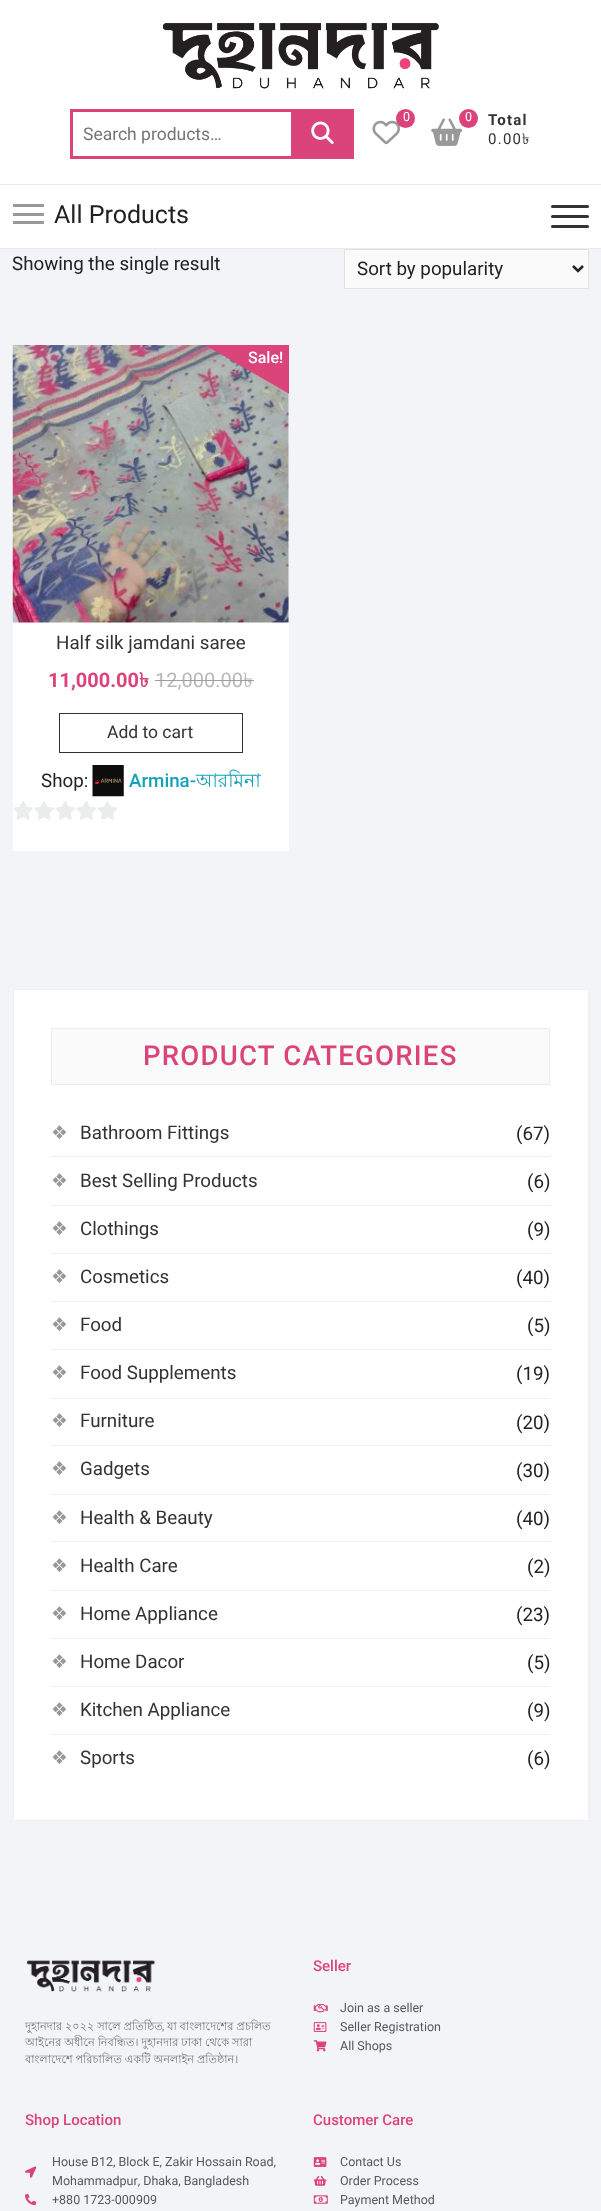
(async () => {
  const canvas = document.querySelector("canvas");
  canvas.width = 601;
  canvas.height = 2211;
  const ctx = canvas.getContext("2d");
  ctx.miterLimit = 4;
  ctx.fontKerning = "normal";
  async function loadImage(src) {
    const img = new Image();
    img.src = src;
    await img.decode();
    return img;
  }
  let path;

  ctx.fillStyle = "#f3f4f8";
  ctx.fillRect(0, 0, 601, 2211);
  ctx.fillStyle = "#ffffff";
  ctx.fillRect(0, 0, 601, 248);
  ctx.drawImage(await loadImage("img/1.png"), 163, 23, 276, 66);
  for (const [x, y, w, h, color] of [
    [70, 109, 221, 3, "#db4479"],
    [70, 156, 221, 3, "#db4479"],
    [70, 109, 3, 50, "#db4479"],
    [291, 109, 63, 50, "#db4479"],
  ]) {
    ctx.fillStyle = color;
    ctx.fillRect(x, y, w, h);
  }
  ctx.drawImage(await loadImage("img/2.png"), 311, 121, 23, 23);
  ctx.drawImage(await loadImage("img/3.png"), 372, 120, 28, 25);
  ctx.beginPath();
  ctx.arc(405.5, 118.5, 9.5, 0, Math.PI * 2);
  ctx.fill();
  ctx.drawImage(await loadImage("img/4.png"), 431, 118, 32, 28);
  ctx.beginPath();
  ctx.arc(468.5, 118.5, 9.5, 0, Math.PI * 2);
  ctx.fill();
  for (const [x, y, w, h, color] of [
    [0, 184, 601, 1, "#ebebeb"],
    [0, 248, 601, 1, "#ebebeb"],
    [13, 213, 31, 3, "#999999"],
    [13, 204, 31, 3, "#999999"],
    [13, 221, 31, 3, "#999999"],
  ]) {
    ctx.fillStyle = color;
    ctx.fillRect(x, y, w, h);
  }
  ctx.fillStyle = "#333333";
  ctx.beginPath();
  ctx.roundRect(551, 215, 38, 3, 1.5);
  ctx.fill();
  ctx.beginPath();
  ctx.roundRect(551, 205, 38, 3, 1.5);
  ctx.fill();
  ctx.beginPath();
  ctx.roundRect(551, 225, 38, 3, 1.5);
  ctx.fill();
  ctx.fillStyle = "#fafafa";
  ctx.beginPath();
  ctx.rect(344.5, 249.5, 244, 39);
  ctx.fill();
  ctx.strokeStyle = "#e1e1e1";
  ctx.stroke();
  path = new Path2D("M573 266L578 271L583 266");
  ctx.strokeStyle = "#222222";
  ctx.lineWidth = 2.5;
  ctx.stroke(path);
  ctx.fillStyle = "#ffffff";
  ctx.fillRect(13, 393, 276, 458);
  ctx.drawImage(await loadImage("img/5.png"), 12, 345, 277, 278);
  ctx.save();
  ctx.beginPath();
  ctx.rect(13, 345, 276, 506);
  ctx.clip();
  ctx.fillStyle = "#db4479";
  path = new Path2D("M179 330L229 244L343 309L293 396Z");
  ctx.fill(path);
  ctx.restore();
  ctx.strokeStyle = "#333333";
  ctx.lineWidth = 1;
  ctx.strokeRect(59.5, 713.5, 183, 39);
  ctx.drawImage(await loadImage("img/6.png"), 92, 765, 32, 32);
  ctx.drawImage(await loadImage("img/7.png"), 13, 801, 104, 19);
  ctx.beginPath();
  ctx.rect(13.5, 989.5, 575, 831);
  ctx.fill();
  ctx.strokeStyle = "#f0f0f0";
  ctx.stroke();
  ctx.fillStyle = "#fafafa";
  ctx.beginPath();
  ctx.rect(51.5, 1028.5, 498, 56);
  ctx.fill();
  ctx.strokeStyle = "#ebebeb";
  ctx.stroke();
  for (const [x, y, w, h, color] of [
    [51, 1156, 499, 1, "#eeeeee"],
    [51, 1205, 499, 1, "#eeeeee"],
    [51, 1253, 499, 1, "#eeeeee"],
    [51, 1301, 499, 1, "#eeeeee"],
    [51, 1349, 499, 1, "#eeeeee"],
    [51, 1398, 499, 1, "#eeeeee"],
    [51, 1445, 499, 1, "#eeeeee"],
    [51, 1494, 499, 1, "#eeeeee"],
    [51, 1541, 499, 1, "#eeeeee"],
    [51, 1590, 499, 1, "#eeeeee"],
    [51, 1638, 499, 1, "#eeeeee"],
    [51, 1686, 499, 1, "#eeeeee"],
    [51, 1734, 499, 1, "#eeeeee"],
  ]) {
    ctx.fillStyle = color;
    ctx.fillRect(x, y, w, h);
  }
  ctx.drawImage(await loadImage("img/8.png"), 26, 1960, 130, 32);
  ctx.drawImage(await loadImage("img/9.png"), 313, 2004, 15, 9);
  ctx.drawImage(await loadImage("img/10.png"), 313, 2022, 14, 10);
  ctx.drawImage(await loadImage("img/11.png"), 313, 2040, 14, 12);
  ctx.drawImage(await loadImage("img/12.png"), 25, 2166, 12, 12);
  ctx.drawImage(await loadImage("img/13.png"), 25, 2193, 12, 13);
  ctx.drawImage(await loadImage("img/14.png"), 313, 2157, 14, 10);
  ctx.drawImage(await loadImage("img/15.png"), 313, 2175, 14, 11);
  ctx.drawImage(await loadImage("img/16.png"), 313, 2195, 15, 9);
  ctx.font = "17.5px Roboto";
  ctx.fillStyle = "#757575";
  ctx.fillText("Search products…", 83, 140);
  ctx.font = "12.5px Roboto";
  ctx.fillStyle = "#ffffff";
  ctx.fillText("0", 403, 121);
  ctx.fillText("0", 465, 121);
  ctx.letterSpacing = "1.25px";
  ctx.font = "bold 15px Roboto";
  ctx.fillStyle = "#333333";
  ctx.fillText("Total", 488, 125);
  ctx.font = "15px Roboto";
  ctx.fillText("0.00", 488, 144);
  ctx.font = "15px Lohit Bengali";
  ctx.fillText("৳", 522, 144);
  ctx.letterSpacing = "0px";
  ctx.font = "25px Roboto";
  ctx.fillStyle = "#222222";
  ctx.fillText("All Products", 54, 223);
  ctx.font = "18.75px Roboto";
  ctx.fillText("Showing the single result", 12, 270);
  ctx.fillText("Sort by popularity", 357, 275);
  ctx.font = "500 16px Roboto";
  ctx.fillStyle = "#ffffff";
  ctx.fillText("Sale!", 248, 363);
  ctx.font = "18.75px Roboto";
  ctx.fillStyle = "#333333";
  ctx.fillText("Half silk jamdani saree", 56, 649);
  ctx.font = "bold 20px Roboto";
  ctx.fillStyle = "#db4479";
  ctx.fillText("11,000.00", 48, 687);
  ctx.font = "bold 20px Lohit Bengali";
  ctx.fillText("৳", 139, 687);
  ctx.font = "20px Roboto";
  ctx.fillStyle = "#b8b8b8";
  ctx.fillText("12,000.00", 155, 687);
  ctx.fillStyle = "#9e9e9e";
  ctx.fillRect(155, 680, 89, 1);
  ctx.font = "20px Lohit Bengali";
  ctx.fillStyle = "#b8b8b8";
  ctx.fillText("৳", 243, 687);
  ctx.fillStyle = "#9e9e9e";
  ctx.fillRect(244, 680, 10, 1);
  ctx.font = "17.5px Roboto";
  ctx.fillStyle = "#333333";
  ctx.fillText("Add to cart", 107, 738);
  ctx.font = "18.75px Roboto";
  ctx.fillStyle = "#222222";
  ctx.fillText("Shop:", 41, 787);
  ctx.font = "500 18.75px Roboto";
  ctx.fillStyle = "#17a2b8";
  ctx.fillText("Armina-", 129, 787);
  ctx.font = "18.75px Lohit Bengali";
  ctx.fillText("আরমিনা", 196, 787);
  ctx.letterSpacing = "1.25px";
  ctx.font = "500 27.5px Roboto";
  ctx.fillStyle = "#db4479";
  ctx.fillText("PRODUCT CATEGORIES", 143, 1065);
  ctx.letterSpacing = "0px";
  ctx.font = "18.75px DejaVu Sans";
  ctx.fillStyle = "#999999";
  ctx.fillText("❖", 51, 1139);
  ctx.font = "18.75px Roboto";
  ctx.fillStyle = "#333333";
  ctx.fillText("Bathroom Fittings", 80, 1139);
  ctx.fillStyle = "#222222";
  ctx.fillText("(67)", 516, 1140);
  ctx.font = "18.75px DejaVu Sans";
  ctx.fillStyle = "#999999";
  ctx.fillText("❖", 51, 1187);
  ctx.font = "18.75px Roboto";
  ctx.fillStyle = "#333333";
  ctx.fillText("Best Selling Products", 80, 1187);
  ctx.fillStyle = "#222222";
  ctx.fillText("(6)", 527, 1188);
  ctx.font = "18.75px DejaVu Sans";
  ctx.fillStyle = "#999999";
  ctx.fillText("❖", 51, 1235);
  ctx.font = "18.75px Roboto";
  ctx.fillStyle = "#333333";
  ctx.fillText("Clothings", 80, 1235);
  ctx.fillStyle = "#222222";
  ctx.fillText("(9)", 527, 1236);
  ctx.font = "18.75px DejaVu Sans";
  ctx.fillStyle = "#999999";
  ctx.fillText("❖", 51, 1283);
  ctx.font = "18.75px Roboto";
  ctx.fillStyle = "#333333";
  ctx.fillText("Cosmetics", 80, 1283);
  ctx.fillStyle = "#222222";
  ctx.fillText("(40)", 516, 1284);
  ctx.font = "18.75px DejaVu Sans";
  ctx.fillStyle = "#999999";
  ctx.fillText("❖", 51, 1331);
  ctx.font = "18.75px Roboto";
  ctx.fillStyle = "#333333";
  ctx.fillText("Food", 80, 1331);
  ctx.fillStyle = "#222222";
  ctx.fillText("(5)", 527, 1332);
  ctx.font = "18.75px DejaVu Sans";
  ctx.fillStyle = "#999999";
  ctx.fillText("❖", 51, 1379);
  ctx.font = "18.75px Roboto";
  ctx.fillStyle = "#333333";
  ctx.fillText("Food Supplements", 80, 1379);
  ctx.fillStyle = "#222222";
  ctx.fillText("(19)", 516, 1380);
  ctx.font = "18.75px DejaVu Sans";
  ctx.fillStyle = "#999999";
  ctx.fillText("❖", 51, 1427);
  ctx.font = "18.75px Roboto";
  ctx.fillStyle = "#333333";
  ctx.fillText("Furniture", 80, 1427);
  ctx.fillStyle = "#222222";
  ctx.fillText("(20)", 516, 1429);
  ctx.font = "18.75px DejaVu Sans";
  ctx.fillStyle = "#999999";
  ctx.fillText("❖", 51, 1475);
  ctx.font = "18.75px Roboto";
  ctx.fillStyle = "#333333";
  ctx.fillText("Gadgets", 80, 1475);
  ctx.fillStyle = "#222222";
  ctx.fillText("(30)", 516, 1477);
  ctx.font = "18.75px DejaVu Sans";
  ctx.fillStyle = "#999999";
  ctx.fillText("❖", 51, 1524);
  ctx.font = "18.75px Roboto";
  ctx.fillStyle = "#333333";
  ctx.fillText("Health & Beauty", 80, 1524);
  ctx.fillStyle = "#222222";
  ctx.fillText("(40)", 516, 1525);
  ctx.font = "18.75px DejaVu Sans";
  ctx.fillStyle = "#999999";
  ctx.fillText("❖", 51, 1572);
  ctx.font = "18.75px Roboto";
  ctx.fillStyle = "#333333";
  ctx.fillText("Health Care", 80, 1572);
  ctx.fillStyle = "#222222";
  ctx.fillText("(2)", 527, 1573);
  ctx.font = "18.75px DejaVu Sans";
  ctx.fillStyle = "#999999";
  ctx.fillText("❖", 51, 1620);
  ctx.font = "18.75px Roboto";
  ctx.fillStyle = "#333333";
  ctx.fillText("Home Appliance", 80, 1620);
  ctx.fillStyle = "#222222";
  ctx.fillText("(23)", 516, 1621);
  ctx.font = "18.75px DejaVu Sans";
  ctx.fillStyle = "#999999";
  ctx.fillText("❖", 51, 1668);
  ctx.font = "18.75px Roboto";
  ctx.fillStyle = "#333333";
  ctx.fillText("Home Dacor", 80, 1668);
  ctx.fillStyle = "#222222";
  ctx.fillText("(5)", 527, 1669);
  ctx.font = "18.75px DejaVu Sans";
  ctx.fillStyle = "#999999";
  ctx.fillText("❖", 51, 1716);
  ctx.font = "18.75px Roboto";
  ctx.fillStyle = "#333333";
  ctx.fillText("Kitchen Appliance", 80, 1716);
  ctx.fillStyle = "#222222";
  ctx.fillText("(9)", 527, 1717);
  ctx.font = "18.75px DejaVu Sans";
  ctx.fillStyle = "#999999";
  ctx.fillText("❖", 51, 1764);
  ctx.font = "18.75px Roboto";
  ctx.fillStyle = "#333333";
  ctx.fillText("Sports", 80, 1764);
  ctx.fillStyle = "#222222";
  ctx.fillText("(6)", 527, 1765);
  ctx.wordSpacing = "-0.25px";
  ctx.font = "11.25px Lohit Bengali";
  ctx.fillStyle = "#757575";
  ctx.fillText("দুহানদার ২০২২ সালে প্রতিষ্ঠিত", 25, 2030);
  ctx.wordSpacing = "0px";
  ctx.font = "11.25px Roboto";
  ctx.fillText(",", 162, 2030);
  ctx.wordSpacing = "-0.25px";
  ctx.font = "11.25px Lohit Bengali";
  for (const [text, x, y] of [
    ["যা বাংলাদেশের প্রচলিত", 167, 2030],
    ["আইনের অধীনে নিবন্ধিত। দুহানদার ঢাকা থেকে সারা", 25, 2046],
    ["বাংলাদেশে পরিচালিত একটি অনলাইন প্রতিষ্ঠান।", 25, 2063],
  ]) {
    ctx.fillText(text, x, y);
  }
  ctx.wordSpacing = "0px";
  ctx.font = "500 15px Roboto";
  ctx.fillStyle = "#db4479";
  ctx.fillText("Seller", 313, 1971);
  ctx.font = "12.5px Roboto";
  ctx.fillStyle = "#54595f";
  for (const [text, x, y] of [
    ["Join as a seller", 340, 2012],
    ["Seller Registration", 340, 2031],
    ["All Shops", 340, 2050],
  ]) {
    ctx.fillText(text, x, y);
  }
  ctx.font = "500 15px Roboto";
  ctx.fillStyle = "#db4479";
  ctx.fillText("Shop Location", 25, 2125);
  ctx.font = "12.5px Roboto";
  ctx.fillStyle = "#54595f";
  for (const [text, x, y] of [
    ["House B12, Block E, Zakir Hossain Road,", 52, 2166],
    ["Mohammadpur, Dhaka, Bangladesh", 52, 2185],
    ["+880 1723-000909", 52, 2204],
  ]) {
    ctx.fillText(text, x, y);
  }
  ctx.font = "500 15px Roboto";
  ctx.fillStyle = "#db4479";
  ctx.fillText("Customer Care", 313, 2125);
  ctx.font = "12.5px Roboto";
  ctx.fillStyle = "#54595f";
  for (const [text, x, y] of [
    ["Contact Us", 340, 2166],
    ["Order Process", 340, 2185],
    ["Payment Method", 340, 2204],
  ]) {
    ctx.fillText(text, x, y);
  }
})();
